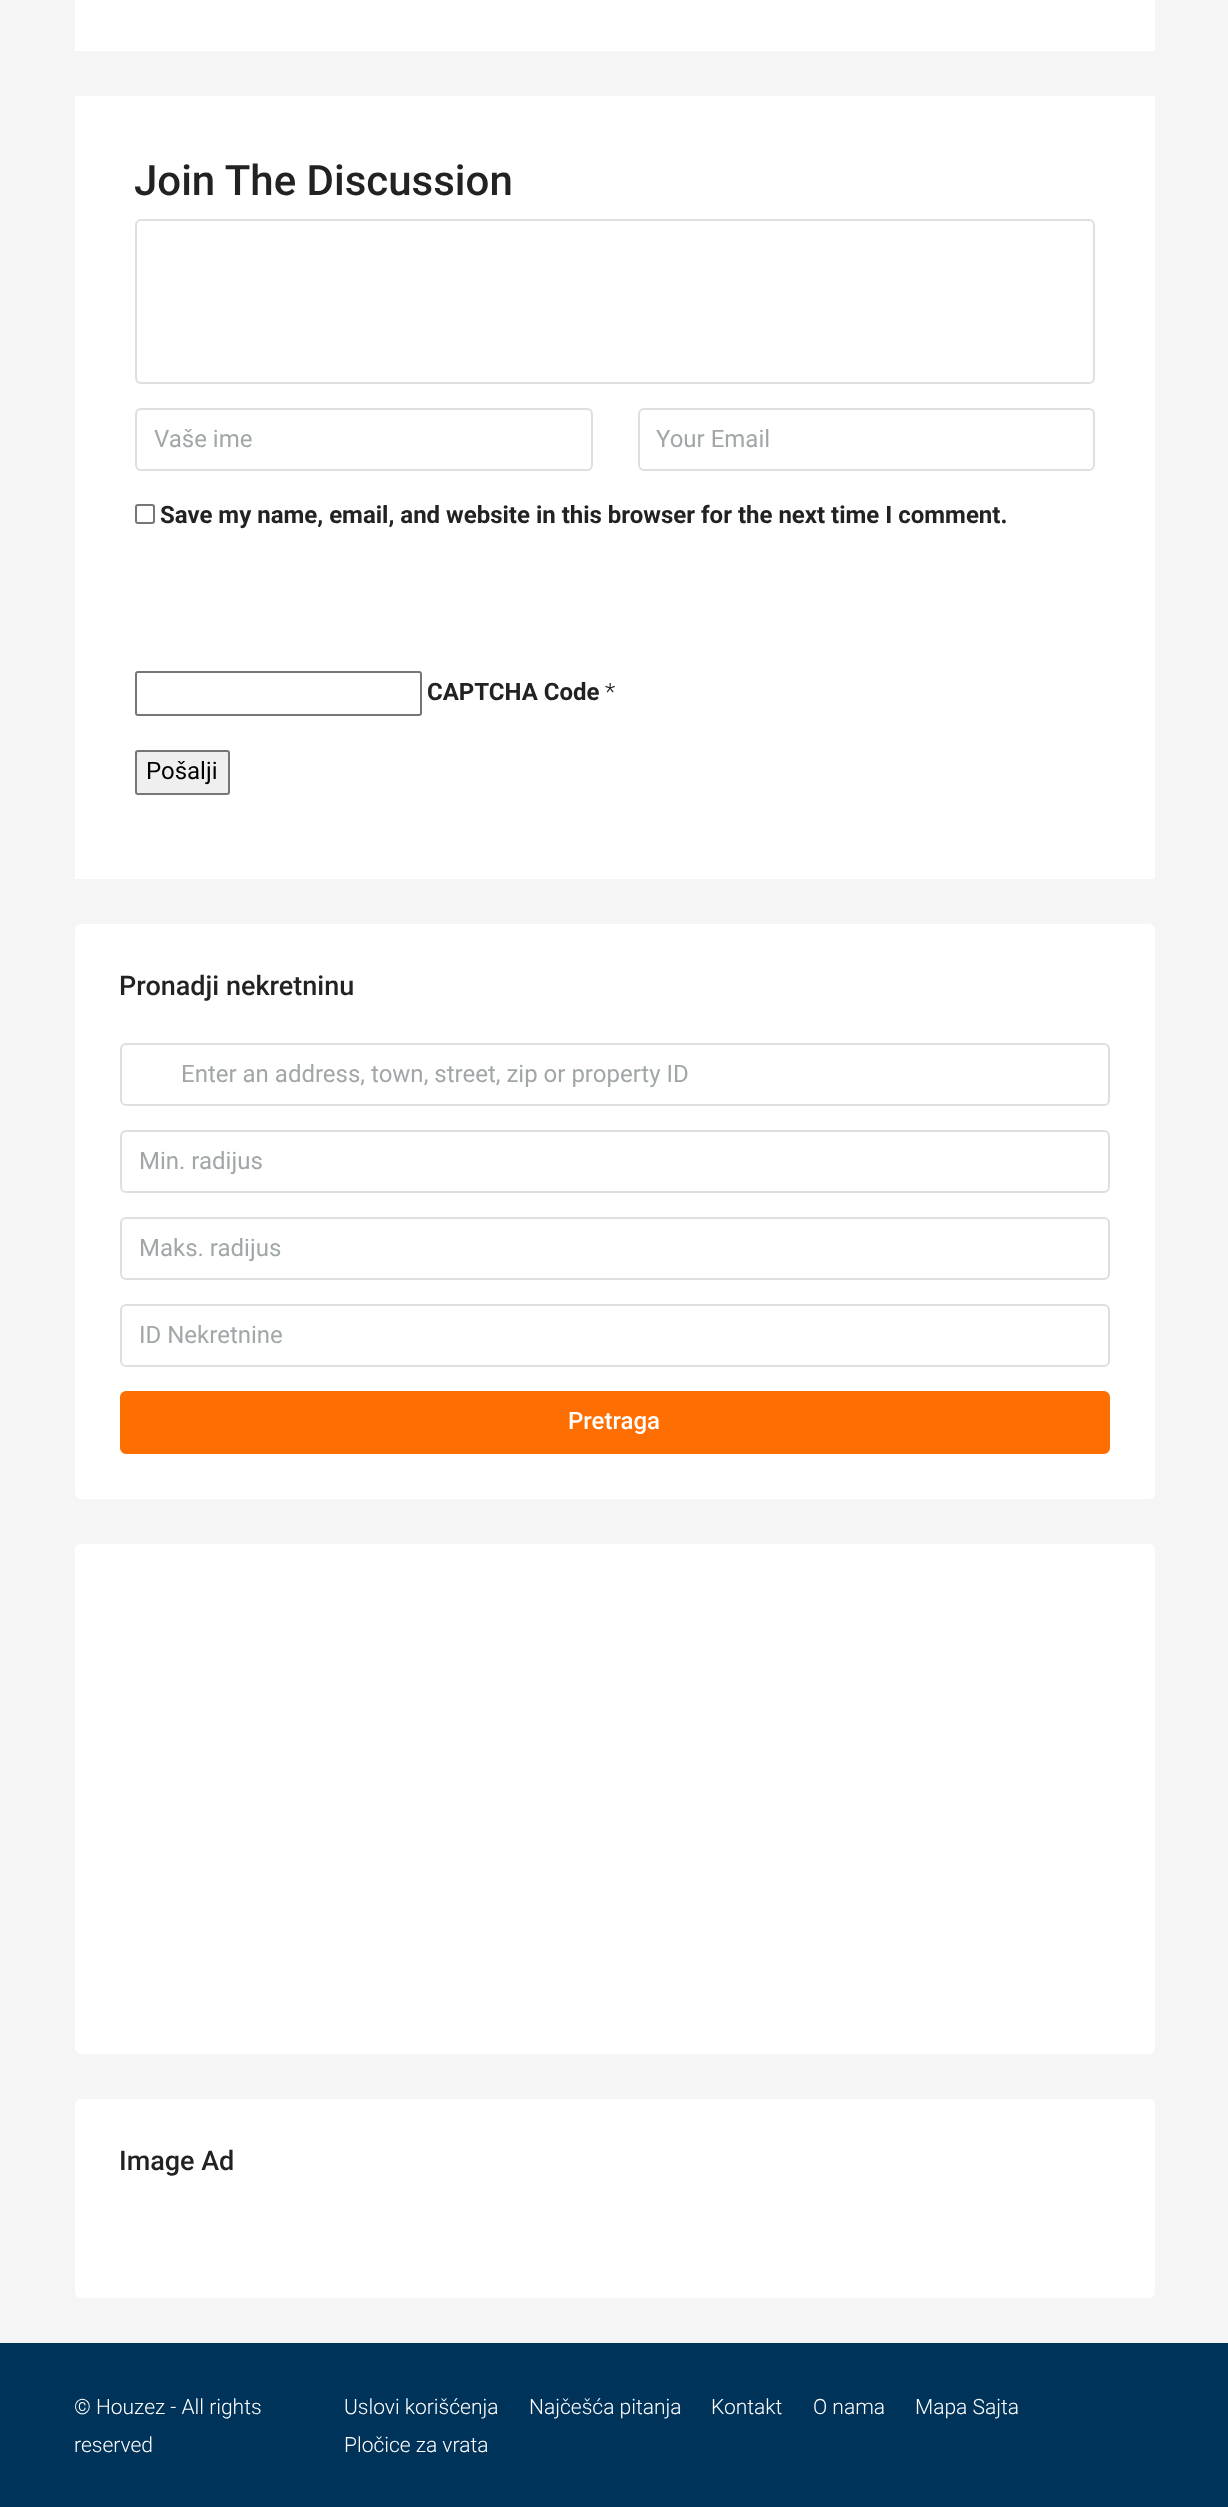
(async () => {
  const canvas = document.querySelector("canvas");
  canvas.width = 1228;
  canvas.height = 2507;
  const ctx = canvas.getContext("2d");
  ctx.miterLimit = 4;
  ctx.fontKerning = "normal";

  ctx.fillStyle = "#f5f5f5";
  ctx.fillRect(0, 0, 1228, 2507);
  ctx.fillStyle = "#ffffff";
  ctx.fillRect(75, 0, 1080, 51);
  ctx.fillRect(75, 96, 1080, 783);
  ctx.beginPath();
  ctx.roundRect(136, 220, 958, 163, 5);
  ctx.strokeStyle = "#dce0e0";
  ctx.lineWidth = 2;
  ctx.stroke();
  ctx.beginPath();
  ctx.roundRect(136, 409, 456, 61, 5);
  ctx.stroke();
  ctx.beginPath();
  ctx.roundRect(639, 409, 455, 61, 5);
  ctx.stroke();
  ctx.beginPath();
  ctx.roundRect(136, 505, 18, 18, 2);
  ctx.strokeStyle = "#767676";
  ctx.stroke();
  ctx.beginPath();
  ctx.roundRect(136, 672, 285, 43, 2);
  ctx.stroke();
  ctx.fillStyle = "#efefef";
  ctx.beginPath();
  ctx.roundRect(136, 751, 93, 43, 2);
  ctx.fill();
  ctx.stroke();
  ctx.fillStyle = "#ffffff";
  ctx.beginPath();
  ctx.roundRect(75, 924, 1080, 575, 6);
  ctx.fill();
  ctx.beginPath();
  ctx.roundRect(121, 1044, 988, 61, 5);
  ctx.strokeStyle = "#dce0e0";
  ctx.stroke();
  ctx.beginPath();
  ctx.roundRect(121, 1131, 988, 61, 5);
  ctx.stroke();
  ctx.beginPath();
  ctx.roundRect(121, 1218, 988, 61, 5);
  ctx.stroke();
  ctx.beginPath();
  ctx.roundRect(121, 1305, 988, 61, 5);
  ctx.stroke();
  ctx.fillStyle = "#ff6e00";
  ctx.beginPath();
  ctx.roundRect(121, 1392, 988, 61, 5);
  ctx.fill();
  ctx.strokeStyle = "#ff6e00";
  ctx.stroke();
  ctx.fillStyle = "#ffffff";
  ctx.beginPath();
  ctx.roundRect(75, 1544, 1080, 510, 6);
  ctx.fill();
  ctx.beginPath();
  ctx.roundRect(75, 2099, 1080, 199, 6);
  ctx.fill();
  ctx.fillStyle = "#00335a";
  ctx.fillRect(0, 2343, 1228, 164);
  ctx.font = "500 42px Roboto";
  ctx.fillStyle = "#222222";
  ctx.fillText("Join The Discussion", 134, 195);
  ctx.font = "24px Roboto";
  ctx.fillStyle = "#a1a7a8";
  ctx.fillText("Vaše ime", 154, 447);
  ctx.fillText("Your Email", 656, 447);
  ctx.font = "bold 24px Roboto";
  ctx.fillStyle = "#222222";
  ctx.fillText("Save my name, email, and website in this browser for the next time I comment.", 160, 523);
  ctx.fillText("CAPTCHA Code", 427, 700);
  ctx.font = "300 24px Roboto";
  ctx.fillText("*", 605, 700);
  ctx.font = "24px Roboto";
  ctx.fillStyle = "#000000";
  ctx.fillText("Pošalji", 146, 779);
  ctx.font = "500 27px Roboto";
  ctx.fillStyle = "#222222";
  ctx.fillText("Pronadji nekretninu", 119, 995);
  ctx.font = "24px Roboto";
  ctx.fillStyle = "#a1a7a8";
  for (const [text, x, y] of [
    ["Enter an address, town, street, zip or property ID", 181, 1082],
    ["Min. radijus", 139, 1169],
    ["Maks. radijus", 139, 1256],
    ["ID Nekretnine", 139, 1343],
  ]) {
    ctx.fillText(text, x, y);
  }
  ctx.font = "500 24px Roboto";
  ctx.fillStyle = "#ffffff";
  ctx.fillText("Pretraga", 568, 1429);
  ctx.font = "500 27px Roboto";
  ctx.fillStyle = "#222222";
  ctx.fillText("Image Ad", 119, 2170);
  ctx.font = "300 21px Roboto";
  ctx.fillStyle = "#ffffff";
  for (const [text, x, y] of [
    ["© Houzez - All rights", 74, 2414],
    ["reserved", 74, 2452],
    ["Uslovi korišćenja", 344, 2414],
    ["Najčešća pitanja", 529, 2414],
    ["Kontakt", 711, 2414],
    ["O nama", 813, 2414],
    ["Mapa Sajta", 915, 2414],
    ["Pločice za vrata", 344, 2452],
  ]) {
    ctx.fillText(text, x, y);
  }
})();
